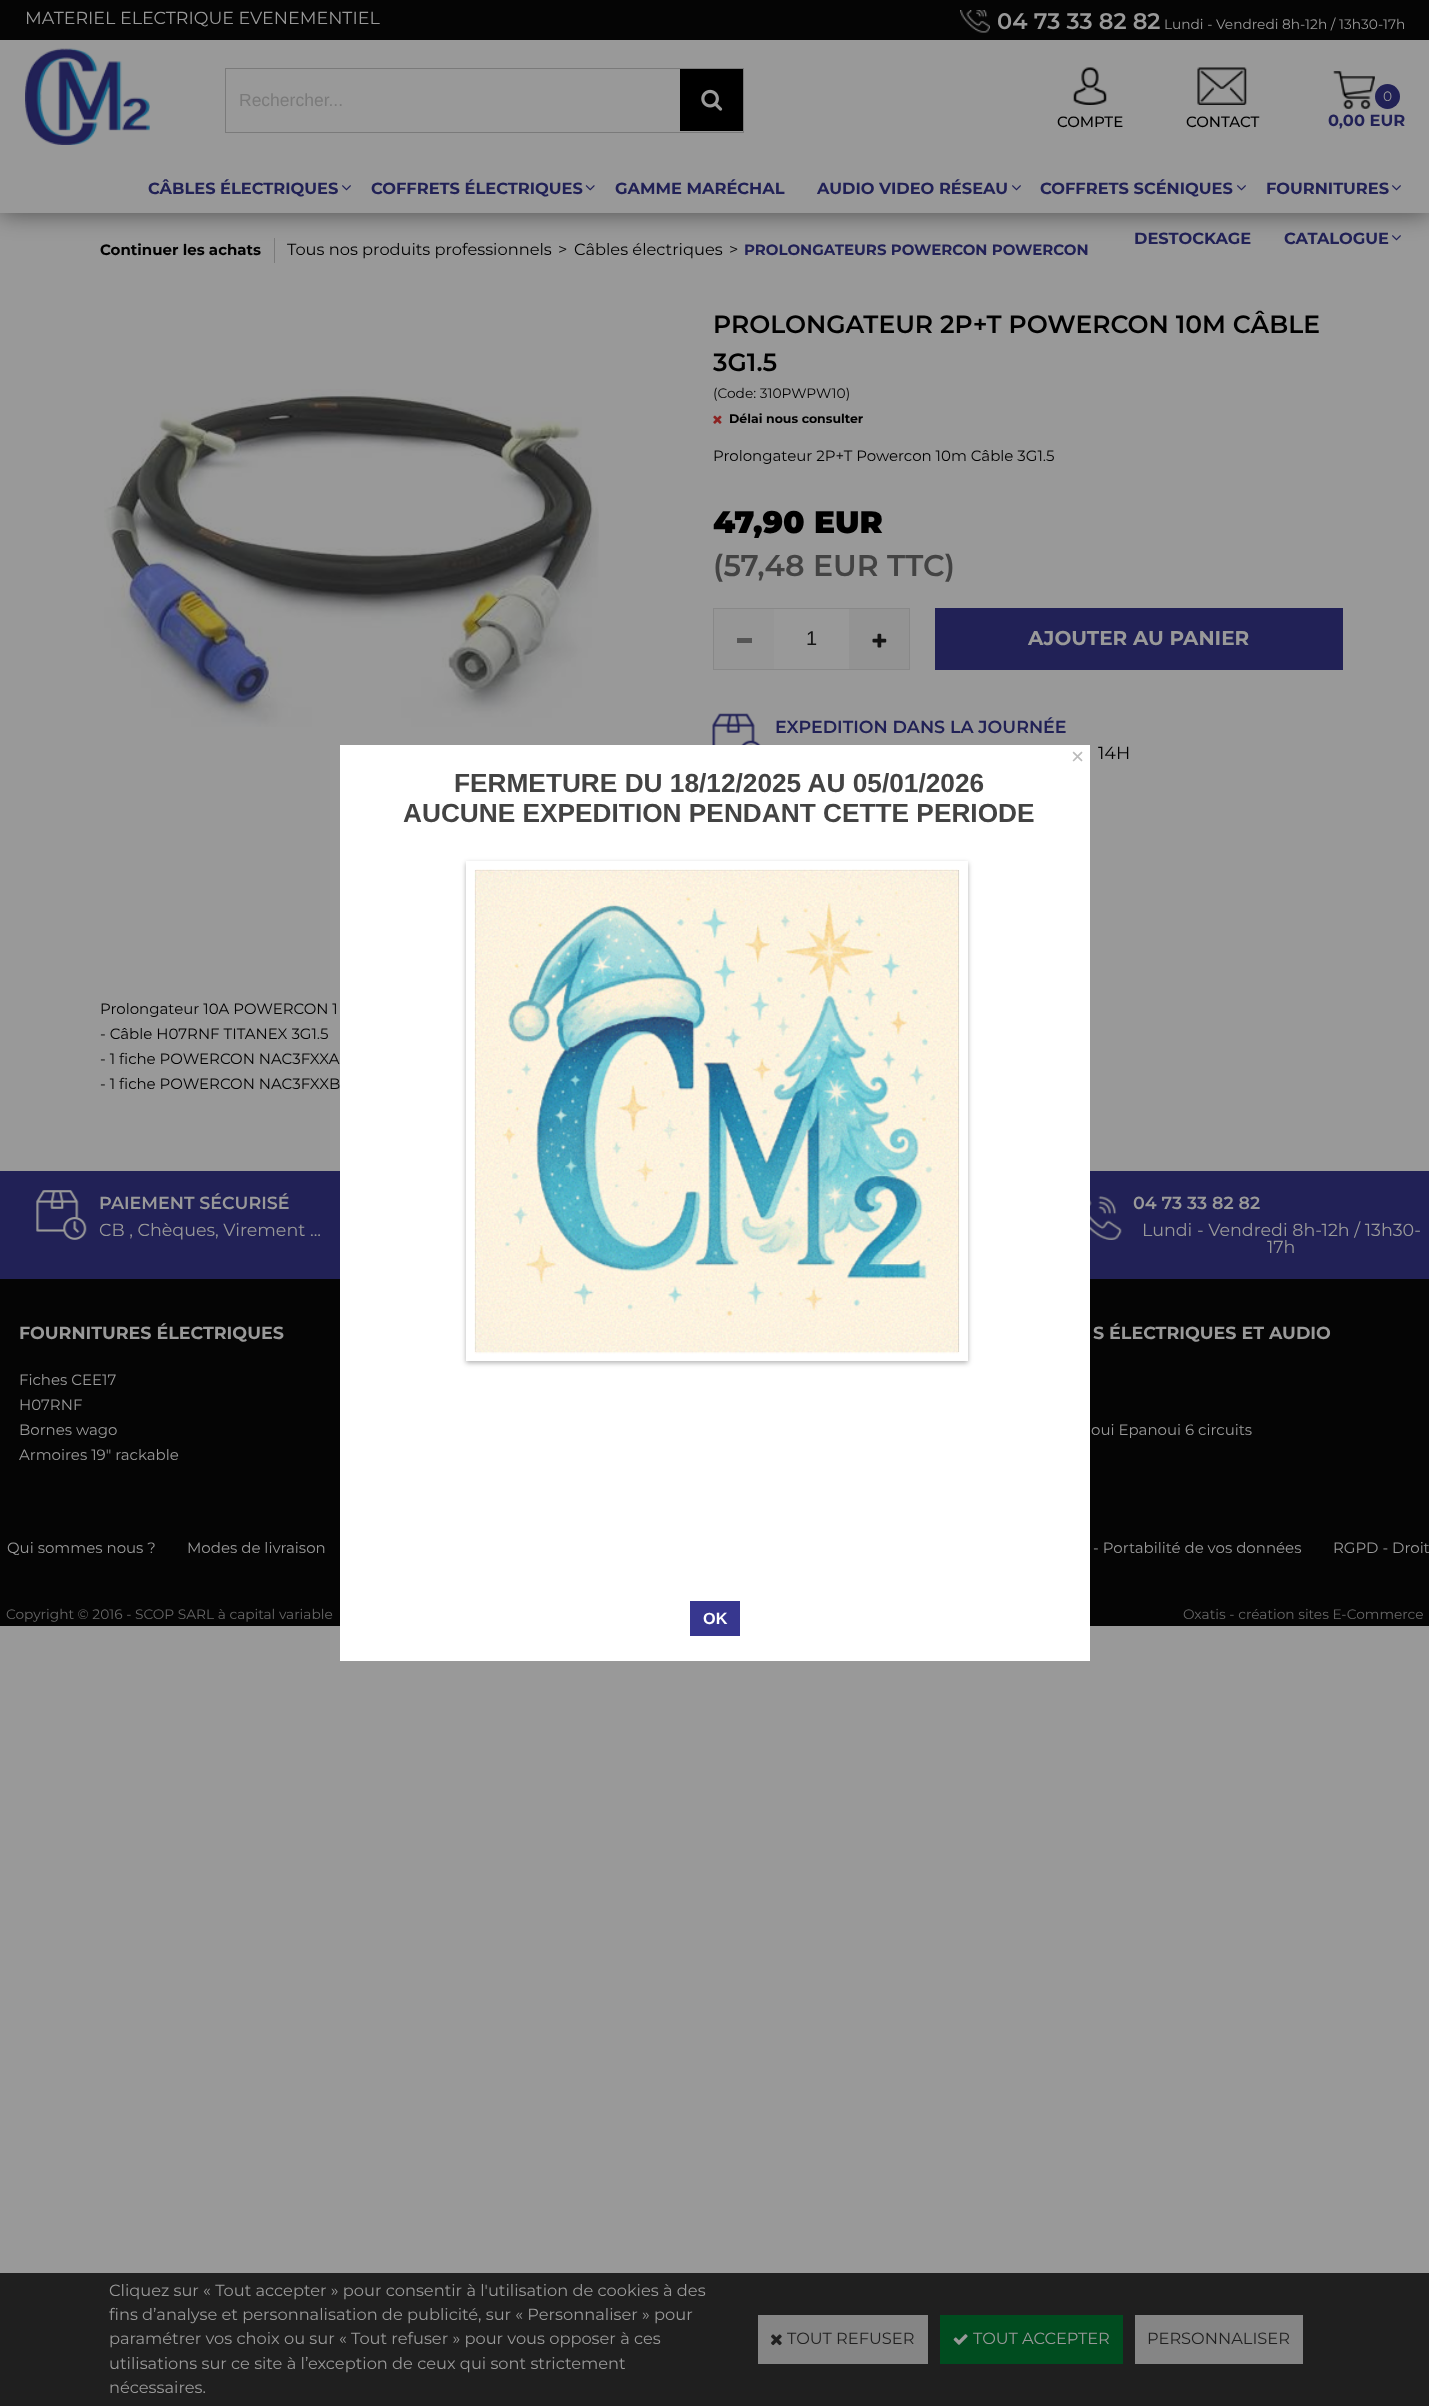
(async () => {
  const canvas = document.querySelector("canvas");
  canvas.width = 1429;
  canvas.height = 2406;
  const ctx = canvas.getContext("2d");
  ctx.miterLimit = 4;
  ctx.fontKerning = "normal";
  async function loadImage(src) {
    const img = new Image();
    img.src = src;
    await img.decode();
    return img;
  }
  let path;

  ctx.fillStyle = "#999999";
  ctx.fillRect(0, 0, 1429, 2406);
  ctx.save();
  path = new Path2D("M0 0H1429V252H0ZM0 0H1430V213H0Z");
  ctx.clip(path, "evenodd");
  ctx.fillStyle = "rgba(0, 0, 0, 0.5)";
  ctx.filter = "blur(12.5px)";
  ctx.beginPath();
  ctx.rect(0, 0, 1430, 213);
  ctx.fill();
  ctx.filter = "none";
  ctx.restore();
  ctx.fillStyle = "#050505";
  ctx.fillRect(0, 0, 1429, 40);
  ctx.drawImage(await loadImage("img/1.png"), 960, 10, 30, 23);
  ctx.drawImage(await loadImage("img/2.png"), 25, 48, 125, 97);
  ctx.strokeStyle = "#7a7a7a";
  ctx.strokeRect(225.5, 68.5, 518, 64);
  ctx.fillStyle = "#000000";
  ctx.fillRect(680, 69, 63, 62);
  ctx.drawImage(await loadImage("img/3.png"), 701, 89, 22, 22);
  ctx.drawImage(await loadImage("img/4.png"), 1333, 71, 42, 38);
  ctx.fillStyle = "#212156";
  ctx.beginPath();
  ctx.arc(1387.5, 96.5, 12.5, 0, Math.PI * 2);
  ctx.fill();
  ctx.drawImage(await loadImage("img/5.png"), 1073, 67, 34, 38);
  ctx.drawImage(await loadImage("img/6.png"), 1197, 67, 50, 38);
  ctx.fillStyle = "#999999";
  ctx.fillRect(25, 212, 1380, 1);
  ctx.drawImage(await loadImage("img/7.png"), 342, 185, 9, 6);
  ctx.drawImage(await loadImage("img/8.png"), 585, 185, 10, 6);
  ctx.drawImage(await loadImage("img/7.png"), 1012, 185, 9, 6);
  ctx.drawImage(await loadImage("img/7.png"), 1237, 185, 9, 6);
  ctx.drawImage(await loadImage("img/7.png"), 1392, 185, 9, 6);
  ctx.drawImage(await loadImage("img/9.png"), 1392, 235, 9, 6);
  ctx.fillStyle = "#7a7a7a";
  ctx.fillRect(274, 238, 1, 25);
  ctx.drawImage(await loadImage("img/10.png"), 104, 389, 495, 338);
  ctx.drawImage(await loadImage("img/11.png"), 713, 415, 9, 9);
  ctx.strokeStyle = "#888888";
  ctx.strokeRect(713.5, 608.5, 196, 61);
  for (const [x, y, w, h, color] of [
    [714, 609, 60, 60, "#969696"],
    [737, 638, 15, 5, "#555555"],
    [849, 609, 60, 60, "#939393"],
  ]) {
    ctx.fillStyle = color;
    ctx.fillRect(x, y, w, h);
  }
  ctx.drawImage(await loadImage("img/12.png"), 872, 633, 15, 15);
  ctx.fillStyle = "#212156";
  ctx.fillRect(935, 608, 408, 62);
  ctx.drawImage(await loadImage("img/13.png"), 712, 713, 49, 32);
  ctx.fillStyle = "#050505";
  ctx.fillRect(0, 1279, 1429, 347);
  ctx.fillStyle = "#212156";
  ctx.fillRect(0, 1171, 1429, 108);
  ctx.drawImage(await loadImage("img/14.png"), 36, 1190, 51, 50);
  ctx.drawImage(await loadImage("img/15.png"), 1090, 1196, 32, 44);
  ctx.fillStyle = "#1f1f1f";
  ctx.fillRect(0, 2273, 1429, 133);
  ctx.fillStyle = "#858585";
  ctx.fillRect(758, 2315, 170, 49);
  ctx.drawImage(await loadImage("img/16.png"), 771, 2334, 11, 12);
  ctx.fillStyle = "#004c1f";
  ctx.fillRect(940, 2315, 183, 49);
  ctx.drawImage(await loadImage("img/17.png"), 953, 2334, 15, 11);
  ctx.fillStyle = "#858585";
  ctx.fillRect(1135, 2315, 168, 49);
  ctx.fillStyle = "#ffffff";
  ctx.fillRect(340, 745, 750, 916);
  ctx.fillStyle = "rgba(0, 0, 0, 0.3)";
  ctx.filter = "blur(2.5px)";
  ctx.beginPath();
  ctx.rect(466, 863, 502, 500);
  ctx.fill();
  ctx.filter = "none";
  ctx.strokeStyle = "#ffffff";
  ctx.lineWidth = 9;
  ctx.strokeRect(470.5, 865.5, 493, 491);
  ctx.drawImage(await loadImage("img/18.png"), 474, 869, 486, 485);
  ctx.fillStyle = "#37378f";
  ctx.fillRect(690, 1601, 50, 35);
  ctx.font = "17.5px Montserrat";
  ctx.fillStyle = "#999999";
  ctx.fillText("MATERIEL ELECTRIQUE EVENEMENTIEL", 25, 24);
  ctx.font = "600 22.5px Montserrat";
  ctx.fillText("04 73 33 82 82", 997, 29);
  ctx.font = "13.75px Montserrat";
  ctx.fillText("Lundi - Vendredi 8h-12h / 13h30-17h", 1164, 29);
  ctx.font = "17.5px Liberation Sans";
  ctx.fillStyle = "#7a7a7a";
  ctx.fillText("Rechercher...", 239, 106);
  ctx.font = "13.75px Montserrat";
  ctx.fillStyle = "#999999";
  ctx.fillText("0", 1383, 101);
  ctx.font = "bold 16.25px Montserrat";
  ctx.fillStyle = "#212156";
  ctx.fillText("0,00 EUR", 1328, 126);
  ctx.font = "500 15px Montserrat";
  ctx.fillStyle = "#000000";
  ctx.fillText("COMPTE", 1057, 127);
  ctx.fillText("CONTACT", 1186, 127);
  ctx.font = "bold 16.25px Montserrat";
  ctx.fillStyle = "#212156";
  for (const [text, x, y] of [
    ["CÂBLES ÉLECTRIQUES", 148, 194],
    ["COFFRETS ÉLECTRIQUES", 371, 194],
    ["GAMME MARÉCHAL", 615, 194],
    ["AUDIO VIDEO RÉSEAU", 817, 194],
    ["COFFRETS SCÉNIQUES", 1040, 194],
    ["FOURNITURES", 1266, 194],
    ["DESTOCKAGE", 1134, 244],
    ["CATALOGUE", 1284, 244],
  ]) {
    ctx.fillText(text, x, y);
  }
  ctx.font = "bold 15px Montserrat";
  ctx.fillStyle = "#000000";
  ctx.fillText("Continuer les achats", 100, 255);
  ctx.font = "16.25px Montserrat";
  for (const [text, x, y] of [
    ["Tous nos produits professionnels", 287, 255],
    [">", 558, 255],
    ["Câbles électriques", 574, 255],
    [">", 729, 255],
  ]) {
    ctx.fillText(text, x, y);
  }
  ctx.font = "bold 15px Montserrat";
  ctx.fillStyle = "#212156";
  ctx.fillText("PROLONGATEURS POWERCON POWERCON", 744, 255);
  ctx.font = "600 25px Montserrat";
  ctx.fillStyle = "#000000";
  ctx.fillText("PROLONGATEUR 2P+T POWERCON 10M CÂBLE", 713, 333);
  ctx.fillText("3G1.5", 713, 371);
  ctx.font = "13.75px Montserrat";
  ctx.fillText("(Code: 310PWPW10)", 713, 398);
  ctx.font = "bold 12.5px Montserrat";
  ctx.fillText("Délai nous consulter", 729, 423);
  ctx.font = "15px Montserrat";
  ctx.fillText("Prolongateur 2P+T Powercon 10m Câble 3G1.5", 713, 461);
  ctx.font = "900 31.25px Montserrat";
  ctx.fillText("47,90 EUR", 713, 533);
  ctx.font = "600 30px Montserrat";
  ctx.fillStyle = "#434343";
  ctx.fillText("(57,48 EUR TTC)", 713, 576);
  ctx.font = "20px Liberation Sans";
  ctx.fillStyle = "#141414";
  ctx.fillText("1", 806, 645);
  ctx.font = "bold 20px Montserrat";
  ctx.fillStyle = "#999999";
  ctx.fillText("AJOUTER AU PANIER", 1028, 645);
  ctx.font = "600 17.5px Montserrat";
  ctx.fillStyle = "#212156";
  ctx.fillText("EXPEDITION DANS LA JOURNÉE", 775, 733);
  ctx.font = "17.5px Montserrat";
  ctx.fillStyle = "#000000";
  ctx.fillText("14H", 1098, 759);
  ctx.font = "15px Montserrat";
  for (const [text, x, y] of [
    ["Prolongateur 10A POWERCON 1", 100, 1014],
    ["- Câble H07RNF TITANEX 3G1.5", 100, 1039],
    ["- 1 fiche POWERCON NAC3FXXA", 100, 1064],
    ["- 1 fiche POWERCON NAC3FXXB", 100, 1089],
  ]) {
    ctx.fillText(text, x, y);
  }
  ctx.font = "600 17.5px Montserrat";
  ctx.fillStyle = "#999999";
  ctx.fillText("PAIEMENT SÉCURISÉ", 99, 1209);
  ctx.font = "17.5px Montserrat";
  ctx.fillText("CB , Chèques, Virement ...", 99, 1236);
  ctx.font = "600 17.5px Montserrat";
  ctx.fillText("04 73 33 82 82", 1133, 1209);
  ctx.font = "17.5px Montserrat";
  ctx.fillText("Lundi - Vendredi 8h-12h / 13h30-", 1142, 1236);
  ctx.fillText("17h", 1267, 1253);
  ctx.font = "bold 17.5px Montserrat";
  ctx.fillText("FOURNITURES ÉLECTRIQUES", 19, 1339);
  ctx.font = "15px Montserrat";
  for (const [text, x, y] of [
    ["Fiches CEE17", 19, 1385],
    ["H07RNF", 19, 1410],
    ["Bornes wago", 19, 1435],
    ["Armoires 19\" rackable", 19, 1460],
  ]) {
    ctx.fillText(text, x, y);
  }
  ctx.font = "bold 17.5px Montserrat";
  ctx.fillText("S ÉLECTRIQUES ET AUDIO", 1093, 1339);
  ctx.font = "15px Montserrat";
  for (const [text, x, y] of [
    ["oui Epanoui 6 circuits", 1091, 1435],
    ["Qui sommes nous ?", 7, 1553],
    ["Modes de livraison", 187, 1553],
    ["- Portabilité de vos données", 1093, 1553],
    ["RGPD - Droit", 1333, 1553],
  ]) {
    ctx.fillText(text, x, y);
  }
  ctx.font = "13.75px Montserrat";
  ctx.fillStyle = "#676767";
  ctx.fillText("Copyright © 2016 - SCOP SARL à capital variable", 6, 1619);
  ctx.fillText("Oxatis - création sites E-Commerce", 1183, 1619);
  ctx.font = "16.25px Montserrat";
  ctx.fillStyle = "#999999";
  for (const [text, x, y] of [
    ["Cliquez sur « Tout accepter » pour consentir à l'utilisation de cookies à des", 109, 2296],
    ["fins d’analyse et personnalisation de publicité, sur « Personnaliser » pour", 109, 2320],
    ["paramétrer vos choix ou sur « Tout refuser » pour vous opposer à ces", 109, 2344],
    ["utilisations sur ce site à l’exception de ceux qui sont strictement", 109, 2369],
    ["nécessaires.", 109, 2393],
  ]) {
    ctx.fillText(text, x, y);
  }
  ctx.fillStyle = "#1f1f1f";
  ctx.fillText("TOUT REFUSER", 787, 2344);
  ctx.fillStyle = "#999999";
  ctx.fillText("TOUT ACCEPTER", 973, 2344);
  ctx.fillStyle = "#1f1f1f";
  ctx.fillText("PERSONNALISER", 1147, 2344);
  ctx.font = "22.5px Liberation Sans";
  ctx.fillStyle = "#bbbbbb";
  ctx.fillText("×", 1071, 764);
  ctx.font = "bold 26.25px Liberation Sans";
  ctx.fillStyle = "#434343";
  ctx.fillText("FERMETURE DU 18/12/2025 AU 05/01/2026", 454, 792);
  ctx.fillText("AUCUNE EXPEDITION PENDANT CETTE PERIODE", 403, 822);
  ctx.font = "bold 16.25px Liberation Sans";
  ctx.fillStyle = "#ffffff";
  ctx.fillText("OK", 703, 1624);
})();
